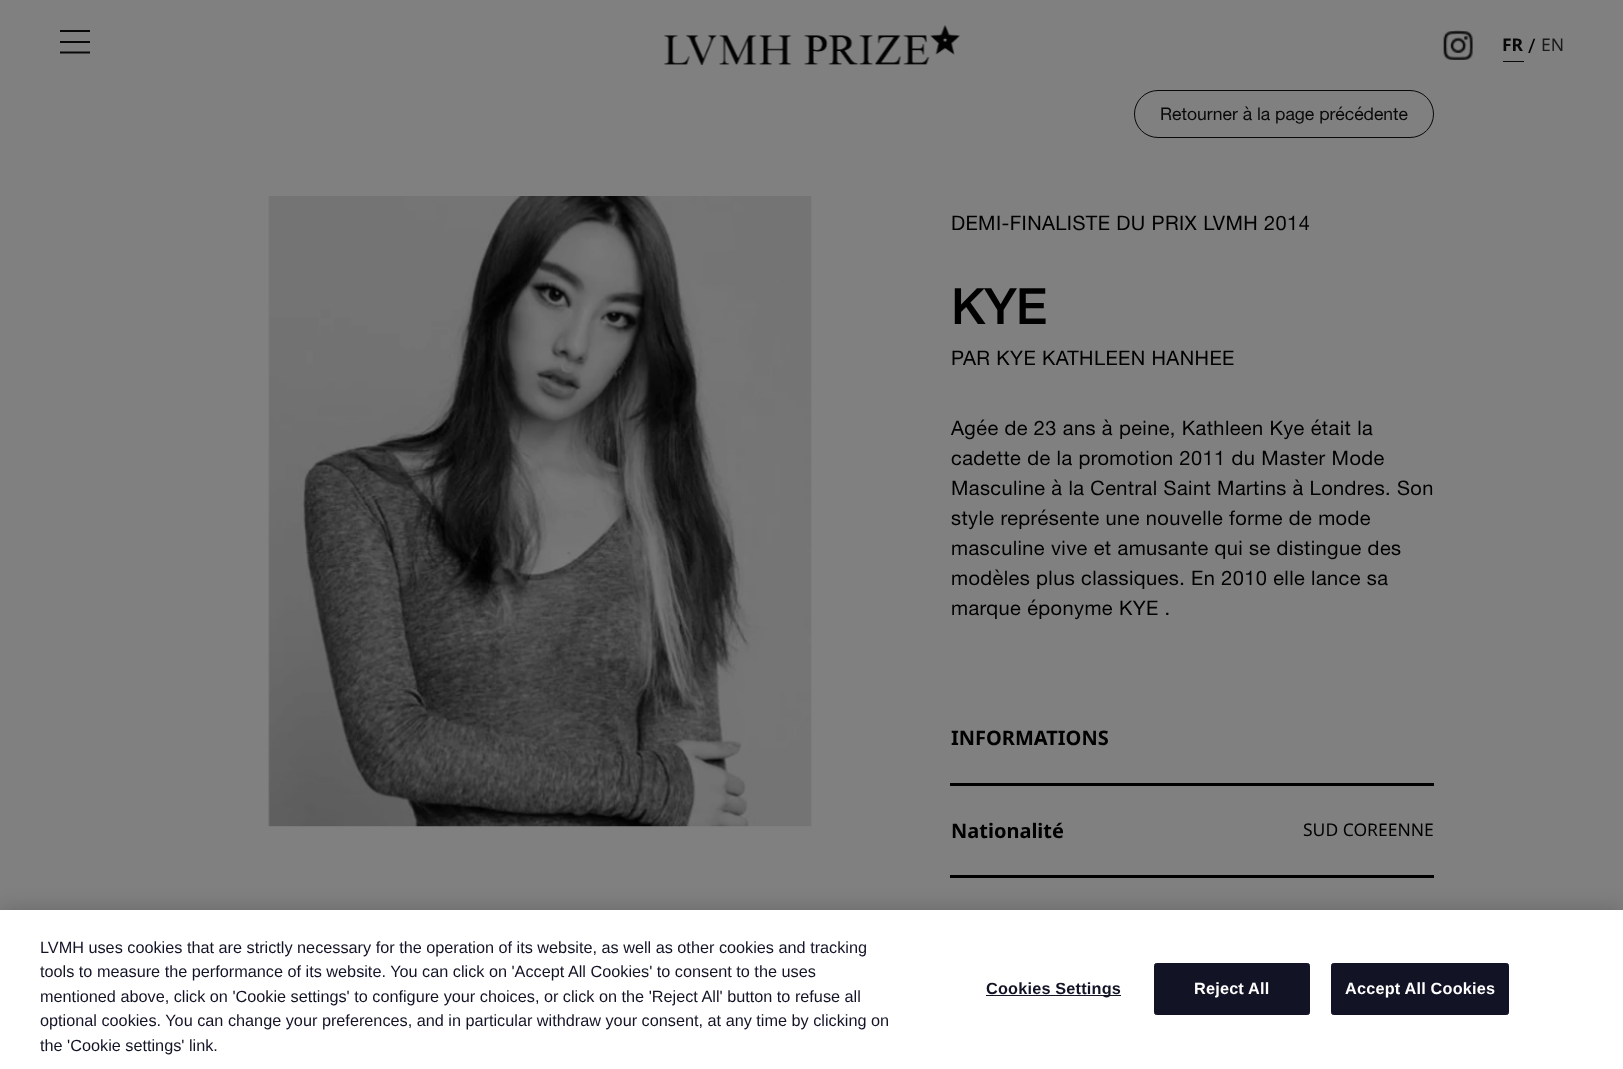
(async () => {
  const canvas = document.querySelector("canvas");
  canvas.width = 1623;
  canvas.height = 1069;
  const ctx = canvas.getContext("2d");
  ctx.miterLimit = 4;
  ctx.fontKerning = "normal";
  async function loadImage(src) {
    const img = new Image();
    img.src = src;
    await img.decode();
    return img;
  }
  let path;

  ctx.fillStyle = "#808080";
  ctx.fillRect(0, 0, 1623, 1069);
  path = new Path2D("M60 52.5H90M60 42H90M60 31H90");
  ctx.strokeStyle = "#080808";
  ctx.lineWidth = 2.1;
  ctx.stroke(path);
  ctx.drawImage(await loadImage("img/1.png"), 664, 25, 296, 40);
  ctx.drawImage(await loadImage("img/2.png"), 1443, 30, 30, 30);
  ctx.fillStyle = "#080808";
  ctx.fillRect(1503, 61, 21, 1);
  ctx.drawImage(await loadImage("img/3.png"), 268, 196, 544, 631);
  ctx.beginPath();
  ctx.roundRect(1134.5, 90.5, 299, 47, 23.5);
  ctx.lineWidth = 1;
  ctx.stroke();
  ctx.fillStyle = "#000000";
  ctx.fillRect(950, 783, 484, 3);
  ctx.fillRect(950, 875, 484, 3);
  ctx.fillStyle = "rgba(0, 0, 0, 0.2)";
  ctx.filter = "blur(11px)";
  ctx.beginPath();
  ctx.rect(0, 910, 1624, 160);
  ctx.fill();
  ctx.filter = "none";
  ctx.fillStyle = "#ffffff";
  ctx.fillRect(0, 910, 1623, 159);
  ctx.fillStyle = "#121426";
  ctx.fillRect(986, 995, 135, 1);
  ctx.beginPath();
  ctx.roundRect(1154.5, 963.5, 155, 51, 2);
  ctx.fill();
  ctx.strokeStyle = "#121426";
  ctx.stroke();
  ctx.beginPath();
  ctx.roundRect(1331.5, 963.5, 177, 51, 2);
  ctx.fill();
  ctx.stroke();
  ctx.font = "bold 17.5px Noto Sans";
  ctx.fillStyle = "#080808";
  ctx.fillText("FR", 1502, 51);
  ctx.font = "20px Noto Sans";
  ctx.fillStyle = "#000000";
  ctx.fillText("/", 1528, 53);
  ctx.font = "17.5px Noto Sans";
  ctx.fillStyle = "#1a1a1a";
  ctx.fillText("EN", 1541, 51);
  ctx.font = "17.5px Helvetica Neue";
  ctx.fillStyle = "#080808";
  ctx.fillText("Retourner à la page précédente", 1160, 120);
  ctx.letterSpacing = "0.4px";
  ctx.font = "20px Helvetica Neue";
  ctx.fillStyle = "#000000";
  ctx.fillText("DEMI-FINALISTE DU PRIX LVMH 2014", 951, 230);
  ctx.letterSpacing = "-1px";
  ctx.font = "500 50px Helvetica Neue";
  ctx.fillText("KYE", 951, 324);
  ctx.letterSpacing = "0.4px";
  ctx.font = "20px Helvetica Neue";
  for (const [text, x, y] of [
    ["PAR KYE KATHLEEN HANHEE", 951, 365],
    ["Agée de 23 ans à peine, Kathleen Kye était la", 951, 435],
    ["cadette de la promotion 2011 du Master Mode", 951, 465],
    ["Masculine à la Central Saint Martins à Londres. Son", 951, 495],
    ["style représente une nouvelle forme de mode", 951, 525],
    ["masculine vive et amusante qui se distingue des", 951, 555],
    ["modèles plus classiques. En 2010 elle lance sa", 951, 585],
    ["marque éponyme KYE .", 951, 615],
  ]) {
    ctx.fillText(text, x, y);
  }
  ctx.letterSpacing = "0px";
  ctx.font = "bold 20px Noto Sans";
  ctx.fillText("INFORMATIONS", 951, 745);
  ctx.fillText("Nationalité", 951, 838);
  ctx.font = "17.5px Noto Sans";
  ctx.fillText("SUD COREENNE", 1303, 836);
  ctx.font = "16.25px Liberation Sans";
  ctx.fillStyle = "#121426";
  for (const [text, x, y] of [
    ["LVMH uses cookies that are strictly necessary for the operation of its website, as well as other cookies and tracking", 40, 953],
    ["tools to measure the performance of its website. You can click on 'Accept All Cookies' to consent to the uses", 40, 977],
    ["mentioned above, click on 'Cookie settings' to configure your choices, or click on the 'Reject All' button to refuse all", 40, 1002],
    ["optional cookies. You can change your preferences, and in particular withdraw your consent, at any time by clicking on", 40, 1026],
    ["the 'Cookie settings' link.", 40, 1051],
  ]) {
    ctx.fillText(text, x, y);
  }
  ctx.letterSpacing = "0.2px";
  ctx.font = "bold 16.25px Liberation Sans";
  ctx.fillText("Cookies Settings", 986, 994);
  ctx.fillStyle = "#ffffff";
  ctx.fillText("Reject All", 1194, 994);
  ctx.fillText("Accept All Cookies", 1345, 994);
})();
